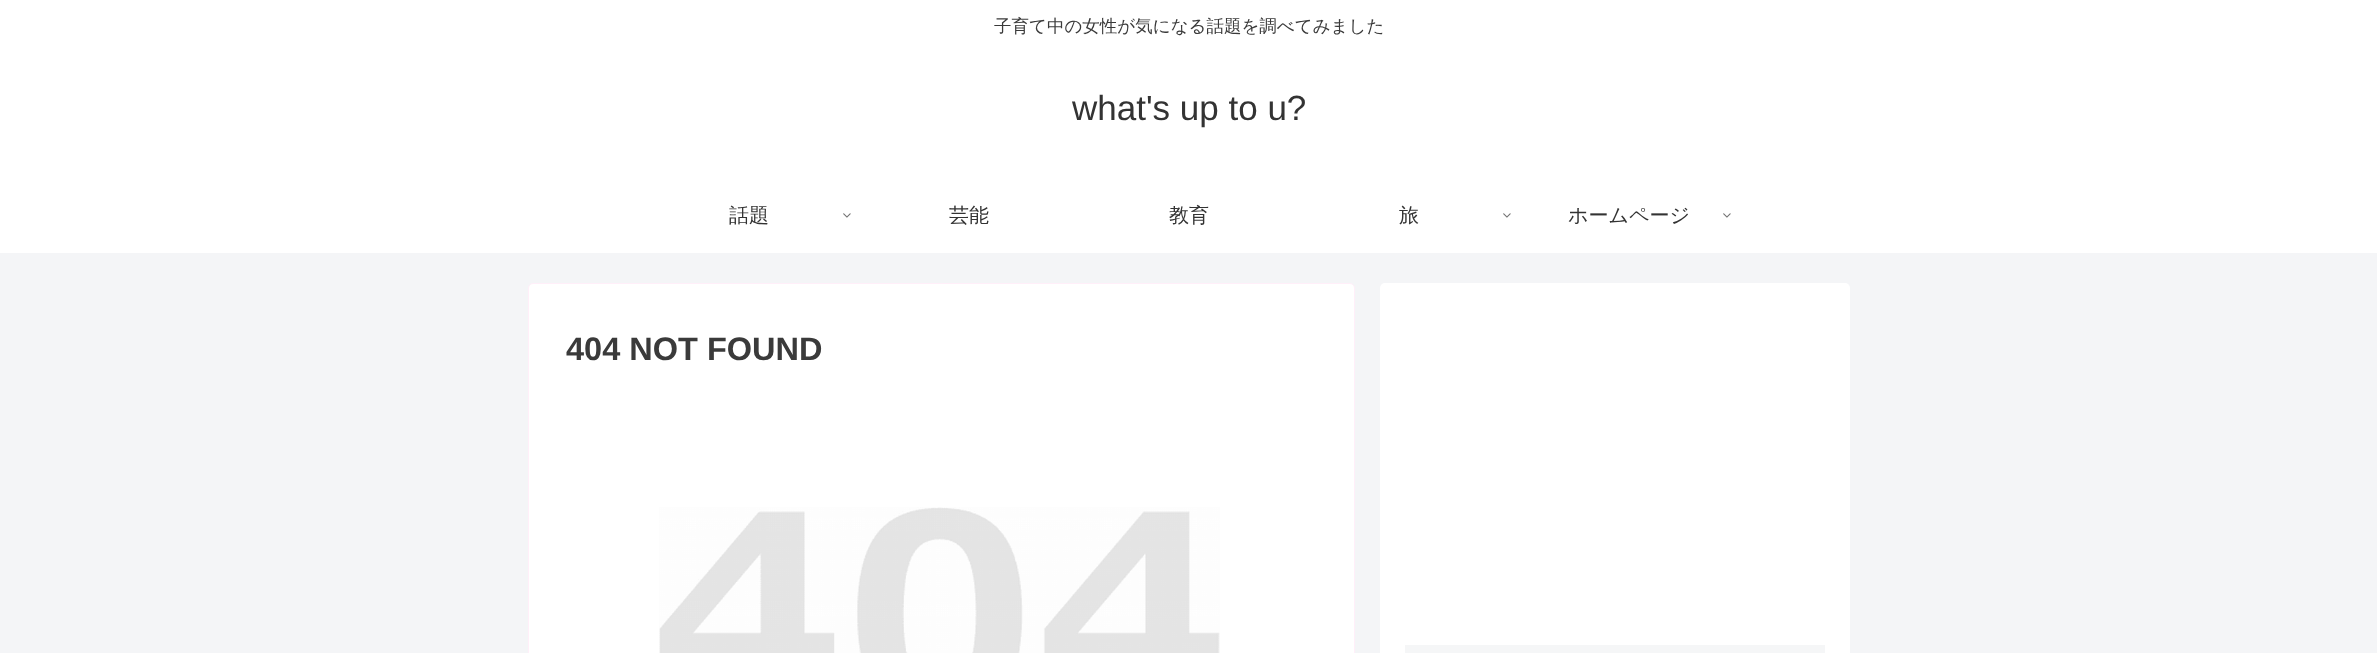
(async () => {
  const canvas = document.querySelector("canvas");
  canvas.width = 2377;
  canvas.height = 653;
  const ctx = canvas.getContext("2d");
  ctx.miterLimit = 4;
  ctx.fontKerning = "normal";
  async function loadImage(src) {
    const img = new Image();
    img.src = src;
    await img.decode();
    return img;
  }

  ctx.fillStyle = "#f4f5f7";
  ctx.fillRect(0, 0, 2377, 653);
  ctx.fillStyle = "#ffffff";
  ctx.fillRect(0, 0, 2377, 253);
  ctx.drawImage(await loadImage("img/1.png"), 843, 213, 8, 5);
  ctx.drawImage(await loadImage("img/1.png"), 1503, 213, 8, 5);
  ctx.drawImage(await loadImage("img/1.png"), 1723, 213, 8, 5);
  ctx.beginPath();
  ctx.roundRect(528.5, 283.5, 826, 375, 4.5);
  ctx.fill();
  ctx.strokeStyle = "#ffeff9";
  ctx.stroke();
  ctx.drawImage(await loadImage("img/2.png"), 659, 507, 561, 146);
  ctx.beginPath();
  ctx.roundRect(1380, 283, 470, 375, 5);
  ctx.fill();
  ctx.fillStyle = "#f5f6f7";
  ctx.fillRect(1405, 645, 420, 8);
  ctx.font = "500 17.5px WenQuanYi Zen Hei";
  ctx.fillStyle = "#3a3a3a";
  ctx.fillText("子育て中の女性が気になる話題を調べてみました", 994, 32);
  ctx.font = "35px Liberation Sans";
  ctx.fillStyle = "#333333";
  ctx.fillText("what's up to u?", 1072, 120);
  ctx.font = "500 20px WenQuanYi Zen Hei";
  for (const [text, x, y] of [
    ["話題", 729, 222],
    ["芸能", 949, 222],
    ["教育", 1169, 222],
    ["旅", 1399, 222],
    ["ホームページ", 1568, 222],
  ]) {
    ctx.fillText(text, x, y);
  }
  ctx.font = "bold 32.5px Liberation Sans";
  ctx.fillStyle = "#3a3a3a";
  ctx.fillText("404 NOT FOUND", 566, 360);
})();
